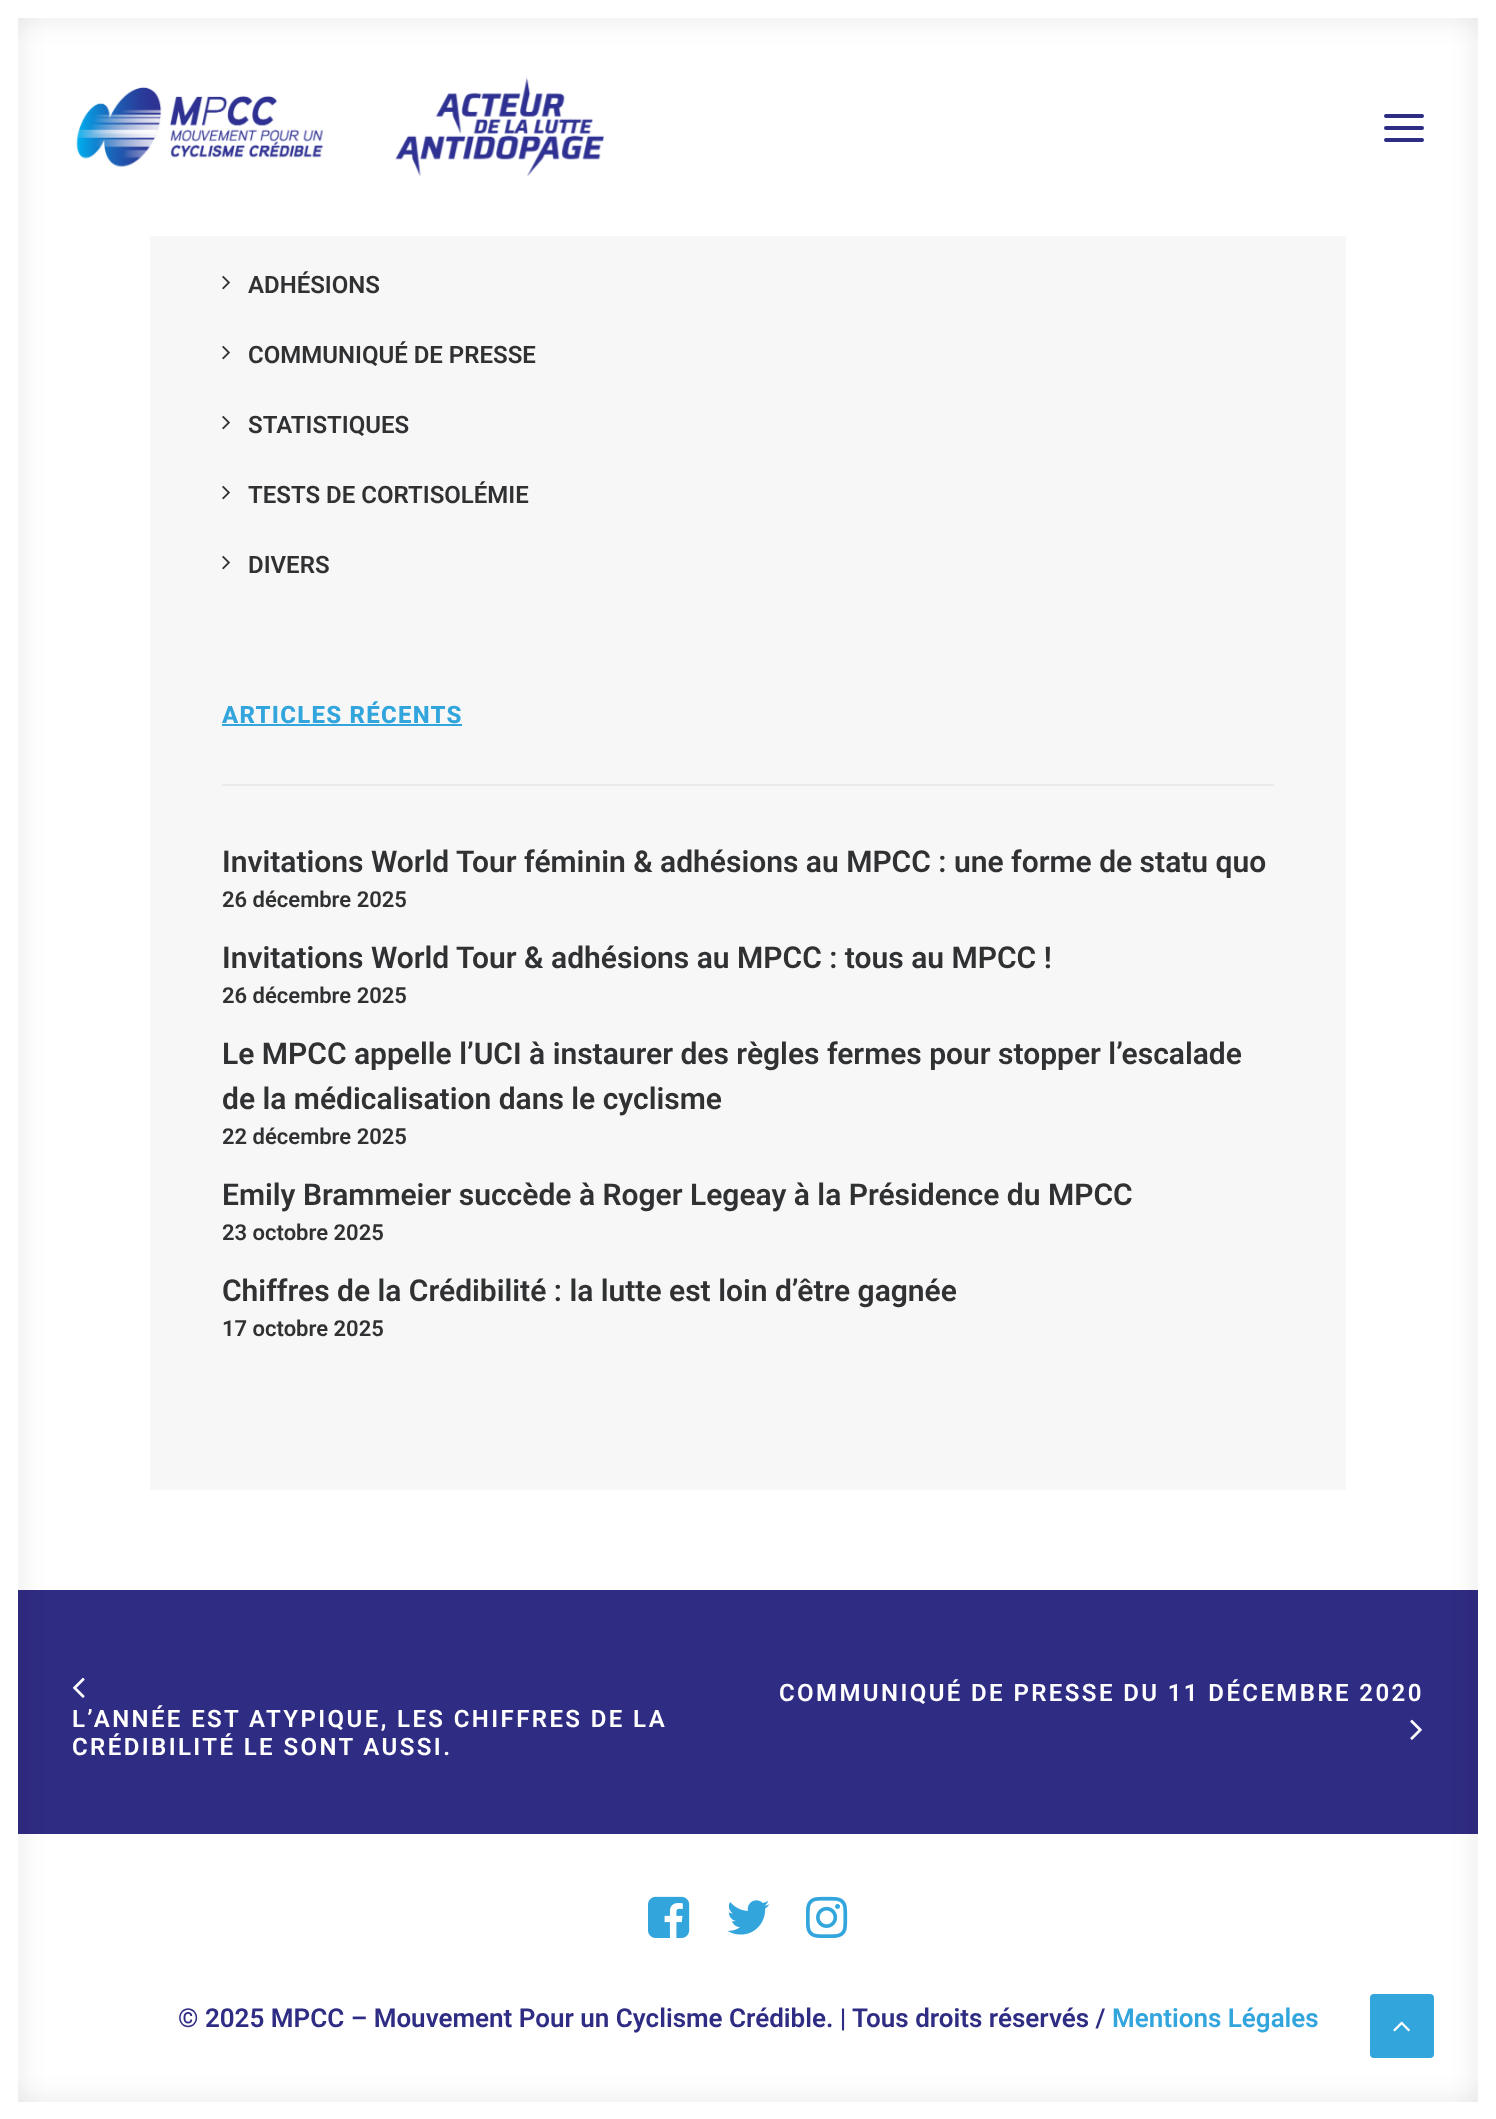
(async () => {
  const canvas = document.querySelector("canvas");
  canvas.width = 1496;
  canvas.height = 2119;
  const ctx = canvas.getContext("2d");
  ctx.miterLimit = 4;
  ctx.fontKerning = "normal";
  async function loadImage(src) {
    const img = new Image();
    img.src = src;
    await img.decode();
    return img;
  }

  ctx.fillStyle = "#ffffff";
  ctx.fillRect(0, 0, 1496, 2119);
  ctx.fillStyle = "rgba(0, 0, 0, 0.1)";
  ctx.filter = "blur(14px)";
  ctx.beginPath();
  ctx.rect(0, 0, 1496, 18);
  ctx.fill();
  ctx.filter = "none";
  ctx.fillStyle = "#2f2c83";
  ctx.fillRect(18, 1590, 1460, 244);
  ctx.fillStyle = "rgba(0, 0, 0, 0.1)";
  ctx.filter = "blur(14px)";
  ctx.beginPath();
  ctx.rect(0, 0, 18, 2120);
  ctx.fill();
  ctx.filter = "none";
  ctx.filter = "blur(14px)";
  ctx.beginPath();
  ctx.rect(0, 2102, 1496, 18);
  ctx.fill();
  ctx.filter = "none";
  ctx.fillStyle = "#ffffff";
  ctx.fillRect(0, 0, 18, 2119);
  ctx.fillStyle = "rgba(0, 0, 0, 0.1)";
  ctx.filter = "blur(14px)";
  ctx.beginPath();
  ctx.rect(1478, 0, 18, 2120);
  ctx.fill();
  ctx.filter = "none";
  for (const [x, y, w, h, color] of [
    [18, 0, 1460, 18, "#ffffff"],
    [1478, 0, 18, 2102, "#ffffff"],
    [18, 2102, 1478, 17, "#ffffff"],
  ]) {
    ctx.fillStyle = color;
    ctx.fillRect(x, y, w, h);
  }
  ctx.drawImage(await loadImage("img/1.png"), 76, 78, 528, 99);
  ctx.fillStyle = "#2f2c83";
  ctx.beginPath();
  ctx.roundRect(1384, 126, 40, 4, 2);
  ctx.fill();
  ctx.beginPath();
  ctx.roundRect(1384, 114, 40, 4, 2);
  ctx.fill();
  ctx.beginPath();
  ctx.roundRect(1384, 138, 40, 4, 2);
  ctx.fill();
  ctx.fillStyle = "#f7f7f7";
  ctx.fillRect(150, 236, 1196, 1254);
  ctx.drawImage(await loadImage("img/2.png"), 222, 275, 8, 15);
  ctx.drawImage(await loadImage("img/2.png"), 222, 345, 8, 15);
  ctx.drawImage(await loadImage("img/2.png"), 222, 415, 8, 15);
  ctx.drawImage(await loadImage("img/2.png"), 222, 485, 8, 15);
  ctx.drawImage(await loadImage("img/2.png"), 222, 555, 8, 15);
  ctx.fillStyle = "#eaeaea";
  ctx.fillRect(222, 784, 1052, 2);
  ctx.fillStyle = "#32a5dd";
  ctx.fillRect(222, 724, 240, 2);
  ctx.drawImage(await loadImage("img/3.png"), 1410, 1719, 12, 21);
  ctx.drawImage(await loadImage("img/4.png"), 72, 1677, 13, 21);
  ctx.drawImage(await loadImage("img/5.png"), 648, 1896, 42, 42);
  ctx.drawImage(await loadImage("img/6.png"), 727, 1900, 43, 35);
  ctx.drawImage(await loadImage("img/7.png"), 806, 1896, 42, 42);
  ctx.beginPath();
  ctx.roundRect(1371, 1995, 62, 62, 3);
  ctx.fill();
  ctx.strokeStyle = "#32a5dd";
  ctx.lineWidth = 2;
  ctx.stroke();
  ctx.drawImage(await loadImage("img/8.png"), 1393, 2021, 17, 11);
  ctx.font = "600 24px Roboto";
  ctx.fillStyle = "#303133";
  for (const [text, x, y] of [
    ["ADHÉSIONS", 248, 293],
    ["COMMUNIQUÉ DE PRESSE", 248, 363],
    ["STATISTIQUES", 248, 433],
    ["TESTS DE CORTISOLÉMIE", 248, 503],
    ["DIVERS", 248, 573],
  ]) {
    ctx.fillText(text, x, y);
  }
  ctx.letterSpacing = "1.25px";
  ctx.font = "800 24px Roboto";
  ctx.fillStyle = "#32a5dd";
  ctx.fillText("ARTICLES RÉCENTS", 222, 723);
  ctx.letterSpacing = "0px";
  ctx.font = "600 30px Roboto";
  ctx.fillStyle = "#303133";
  ctx.fillText("Invitations World Tour féminin & adhésions au MPCC : une forme de statu quo", 222, 872);
  ctx.font = "600 22px Roboto";
  ctx.fillText("26 décembre 2025", 222, 907);
  ctx.font = "600 30px Roboto";
  ctx.fillText("Invitations World Tour & adhésions au MPCC : tous au MPCC !", 222, 968);
  ctx.font = "600 22px Roboto";
  ctx.fillText("26 décembre 2025", 222, 1003);
  ctx.font = "600 30px Roboto";
  ctx.fillText("Le MPCC appelle l’UCI à instaurer des règles fermes pour stopper l’escalade", 222, 1064);
  ctx.fillText("de la médicalisation dans le cyclisme", 222, 1109);
  ctx.font = "600 22px Roboto";
  ctx.fillText("22 décembre 2025", 222, 1144);
  ctx.font = "600 30px Roboto";
  ctx.fillText("Emily Brammeier succède à Roger Legeay à la Présidence du MPCC", 222, 1205);
  ctx.font = "600 22px Roboto";
  ctx.fillText("23 octobre 2025", 222, 1240);
  ctx.font = "600 30px Roboto";
  ctx.fillText("Chiffres de la Crédibilité : la lutte est loin d’être gagnée", 222, 1301);
  ctx.font = "600 22px Roboto";
  ctx.fillText("17 octobre 2025", 222, 1336);
  ctx.letterSpacing = "2.4px";
  ctx.font = "600 24px Roboto";
  ctx.fillStyle = "#ffffff";
  for (const [text, x, y] of [
    ["COMMUNIQUÉ DE PRESSE DU 11 DÉCEMBRE 2020", 779, 1701],
    ["L’ANNÉE EST ATYPIQUE, LES CHIFFRES DE LA", 72, 1727],
    ["CRÉDIBILITÉ LE SONT AUSSI.", 72, 1755],
  ]) {
    ctx.fillText(text, x, y);
  }
  ctx.letterSpacing = "0px";
  ctx.font = "600 26px Roboto";
  ctx.fillStyle = "#2f2c83";
  ctx.fillText("© 2025 MPCC – Mouvement Pour un Cyclisme Crédible. | Tous droits réservés /", 178, 2027);
  ctx.fillStyle = "#32a5dd";
  ctx.fillText("Mentions Légales", 1112, 2027);
})();
